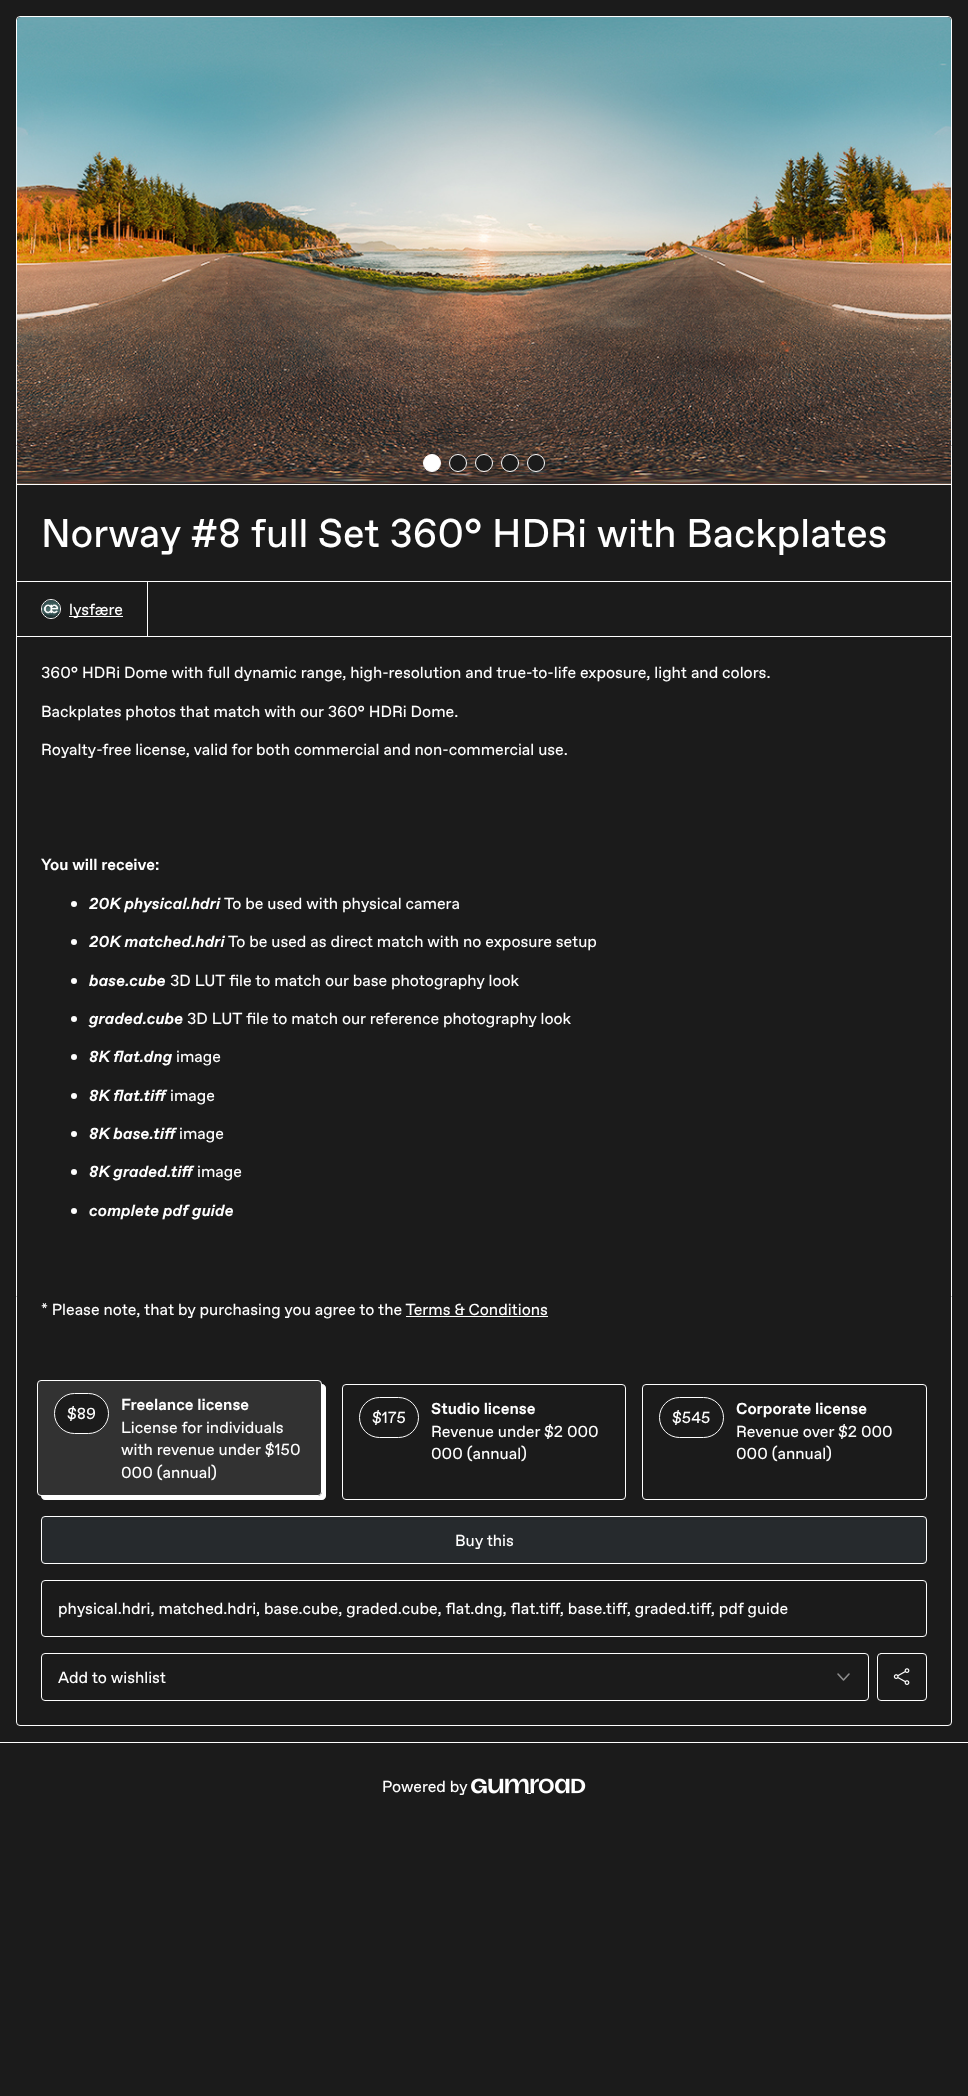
(async () => {
  const canvas = document.querySelector("canvas");
  canvas.width = 968;
  canvas.height = 2096;
  const ctx = canvas.getContext("2d");
  ctx.miterLimit = 4;
  ctx.fontKerning = "normal";
  async function loadImage(src) {
    const img = new Image();
    img.src = src;
    await img.decode();
    return img;
  }
  let path;

  ctx.fillStyle = "#1b1b1b";
  ctx.fillRect(0, 0, 968, 2096);
  ctx.fillStyle = "#ffffff";
  ctx.fillRect(0, 1742, 968, 1);
  ctx.beginPath();
  ctx.roundRect(16.5, 16.5, 935, 1709, 3.5);
  ctx.strokeStyle = "#ffffff";
  ctx.stroke();
  ctx.fillRect(17, 484, 934, 1);
  ctx.drawImage(await loadImage("img/1.png"), 17, 17, 934, 467);
  ctx.beginPath();
  ctx.arc(432, 463, 8.5, 0, Math.PI * 2);
  ctx.fill();
  ctx.stroke();
  ctx.fillStyle = "#1b1b1b";
  ctx.beginPath();
  ctx.arc(458, 463, 8.5, 0, Math.PI * 2);
  ctx.fill();
  ctx.stroke();
  ctx.beginPath();
  ctx.arc(484, 463, 8.5, 0, Math.PI * 2);
  ctx.fill();
  ctx.stroke();
  ctx.beginPath();
  ctx.arc(510, 463, 8.5, 0, Math.PI * 2);
  ctx.fill();
  ctx.stroke();
  ctx.beginPath();
  ctx.arc(536, 463, 8.5, 0, Math.PI * 2);
  ctx.fill();
  ctx.stroke();
  ctx.fillStyle = "#ffffff";
  ctx.fillRect(148, 581, 803, 1);
  ctx.strokeRect(16.5, 581.5, 131, 55);
  ctx.beginPath();
  ctx.arc(51, 609, 9.5, 0, Math.PI * 2);
  ctx.stroke();
  ctx.drawImage(await loadImage("img/2.png"), 42, 600, 18, 18);
  ctx.fillRect(69, 616, 54, 1);
  ctx.fillRect(148, 636, 803, 1);
  ctx.beginPath();
  ctx.arc(74, 904, 3, 0, Math.PI * 2);
  ctx.fill();
  ctx.beginPath();
  ctx.arc(74, 942, 3, 0, Math.PI * 2);
  ctx.fill();
  ctx.beginPath();
  ctx.arc(74, 981, 3, 0, Math.PI * 2);
  ctx.fill();
  ctx.beginPath();
  ctx.arc(74, 1019, 3, 0, Math.PI * 2);
  ctx.fill();
  ctx.beginPath();
  ctx.arc(74, 1057, 3, 0, Math.PI * 2);
  ctx.fill();
  ctx.beginPath();
  ctx.arc(74, 1096, 3, 0, Math.PI * 2);
  ctx.fill();
  ctx.beginPath();
  ctx.arc(74, 1134, 3, 0, Math.PI * 2);
  ctx.fill();
  ctx.beginPath();
  ctx.arc(74, 1172, 3, 0, Math.PI * 2);
  ctx.fill();
  ctx.beginPath();
  ctx.arc(74, 1211, 3, 0, Math.PI * 2);
  ctx.fill();
  ctx.fillRect(406, 1316, 142, 1);
  path = new Path2D("M41 1496C41 1498 43 1500 45 1500H322C324 1500 326 1498 326 1496V1388C326 1386 324 1384 322 1384V1492C322 1494 320 1496 318 1496Z");
  ctx.fill(path);
  ctx.fillStyle = "rgba(255, 255, 255, 0.1)";
  ctx.beginPath();
  ctx.roundRect(37.5, 1380.5, 284, 115, 3.5);
  ctx.fill();
  ctx.stroke();
  ctx.fillStyle = "#1b1b1b";
  ctx.beginPath();
  ctx.roundRect(54.5, 1393.5, 54, 40, 20);
  ctx.fill();
  ctx.stroke();
  ctx.beginPath();
  ctx.roundRect(342.5, 1384.5, 283, 115, 3.5);
  ctx.stroke();
  ctx.beginPath();
  ctx.roundRect(359.5, 1397.5, 59, 40, 20);
  ctx.stroke();
  ctx.beginPath();
  ctx.roundRect(642.5, 1384.5, 284, 115, 3.5);
  ctx.stroke();
  ctx.beginPath();
  ctx.roundRect(659.5, 1397.5, 64, 40, 20);
  ctx.stroke();
  ctx.fillStyle = "#262a2d";
  ctx.beginPath();
  ctx.roundRect(41.5, 1516.5, 885, 47, 3.5);
  ctx.fill();
  ctx.stroke();
  ctx.beginPath();
  ctx.roundRect(41.5, 1580.5, 885, 56, 3.5);
  ctx.stroke();
  ctx.beginPath();
  ctx.roundRect(41.5, 1653.5, 827, 47, 3.5);
  ctx.stroke();
  path = new Path2D("M849 1674L843.5 1680L838 1674");
  ctx.strokeStyle = "#8d8d8d";
  ctx.lineWidth = 1.6;
  ctx.lineCap = "round";
  ctx.lineJoin = "round";
  ctx.stroke(path);
  ctx.beginPath();
  ctx.roundRect(877.5, 1653.5, 49, 47, 3.5);
  ctx.strokeStyle = "#ffffff";
  ctx.lineWidth = 1;
  ctx.lineJoin = "miter";
  ctx.stroke();
  ctx.drawImage(await loadImage("img/3.png"), 893, 1668, 17, 17);
  ctx.drawImage(await loadImage("img/4.png"), 471, 1778, 115, 16);
  ctx.fillStyle = "#ffffff";
  ctx.fillRect(527, 1793, 4, 1);
  ctx.font = "40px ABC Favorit";
  ctx.fillText("Norway #8 full Set 360° HDRi with Backplates", 41, 547);
  ctx.font = "16px ABC Favorit";
  for (const [text, x, y] of [
    ["lysfære", 69, 615],
    ["360° HDRi Dome with full dynamic range, high-resolution and true-to-life exposure, light and colors.", 41, 678],
    ["Backplates photos that match with our 360° HDRi Dome.", 41, 717],
    ["Royalty-free license, valid for both commercial and non-commercial use.", 41, 755],
  ]) {
    ctx.fillText(text, x, y);
  }
  ctx.font = "bold 16px ABC Favorit";
  ctx.fillText("You will receive:", 41, 870);
  ctx.font = "italic bold 16px ABC Favorit";
  ctx.fillText("20K physical.hdri", 89, 909);
  ctx.font = "16px ABC Favorit";
  ctx.fillText("To be used with physical camera", 224, 909);
  ctx.font = "italic bold 16px ABC Favorit";
  ctx.fillText("20K matched.hdri", 89, 947);
  ctx.font = "16px ABC Favorit";
  ctx.fillText("To be used as direct match with no exposure setup", 228, 947);
  ctx.font = "italic bold 16px ABC Favorit";
  ctx.fillText("base.cube", 89, 986);
  ctx.font = "16px ABC Favorit";
  ctx.fillText("3D LUT file to match our base photography look", 170, 986);
  ctx.font = "italic bold 16px ABC Favorit";
  ctx.fillText("graded.cube", 89, 1024);
  ctx.font = "16px ABC Favorit";
  ctx.fillText("3D LUT file to match our reference photography look", 187, 1024);
  ctx.font = "italic bold 16px ABC Favorit";
  ctx.fillText("8K flat.dng", 89, 1062);
  ctx.font = "16px ABC Favorit";
  ctx.fillText("image", 176, 1062);
  ctx.font = "italic bold 16px ABC Favorit";
  ctx.fillText("8K flat.tiff", 89, 1101);
  ctx.font = "16px ABC Favorit";
  ctx.fillText("image", 170, 1101);
  ctx.font = "italic bold 16px ABC Favorit";
  ctx.fillText("8K base.tiff", 89, 1139);
  ctx.font = "16px ABC Favorit";
  ctx.fillText("image", 179, 1139);
  ctx.font = "italic bold 16px ABC Favorit";
  ctx.fillText("8K graded.tiff", 89, 1177);
  ctx.font = "16px ABC Favorit";
  ctx.fillText("image", 197, 1177);
  ctx.font = "italic bold 16px ABC Favorit";
  ctx.fillText("complete pdf guide", 89, 1216);
  ctx.font = "16px ABC Favorit";
  ctx.fillText("* Please note, that by purchasing you agree to the Terms & Conditions", 41, 1315);
  ctx.fillText("$89", 67, 1419);
  ctx.font = "bold 16px ABC Favorit";
  ctx.fillText("Freelance license", 121, 1410);
  ctx.font = "16px ABC Favorit";
  for (const [text, x, y] of [
    ["License for individuals", 121, 1433],
    ["with revenue under $150", 121, 1455],
    ["000 (annual)", 121, 1478],
    ["$175", 372, 1423],
  ]) {
    ctx.fillText(text, x, y);
  }
  ctx.font = "bold 16px ABC Favorit";
  ctx.fillText("Studio license", 431, 1414);
  ctx.font = "16px ABC Favorit";
  for (const [text, x, y] of [
    ["Revenue under $2 000", 431, 1437],
    ["000 (annual)", 431, 1459],
    ["$545", 672, 1423],
  ]) {
    ctx.fillText(text, x, y);
  }
  ctx.font = "bold 16px ABC Favorit";
  ctx.fillText("Corporate license", 736, 1414);
  ctx.font = "16px ABC Favorit";
  for (const [text, x, y] of [
    ["Revenue over $2 000", 736, 1437],
    ["000 (annual)", 736, 1459],
    ["Buy this", 455, 1546],
    ["physical.hdri, matched.hdri, base.cube, graded.cube, flat.dng, flat.tiff, base.tiff, graded.tiff, pdf guide", 58, 1614],
    ["Add to wishlist", 58, 1683],
    ["Powered by", 382, 1792],
  ]) {
    ctx.fillText(text, x, y);
  }
})();
